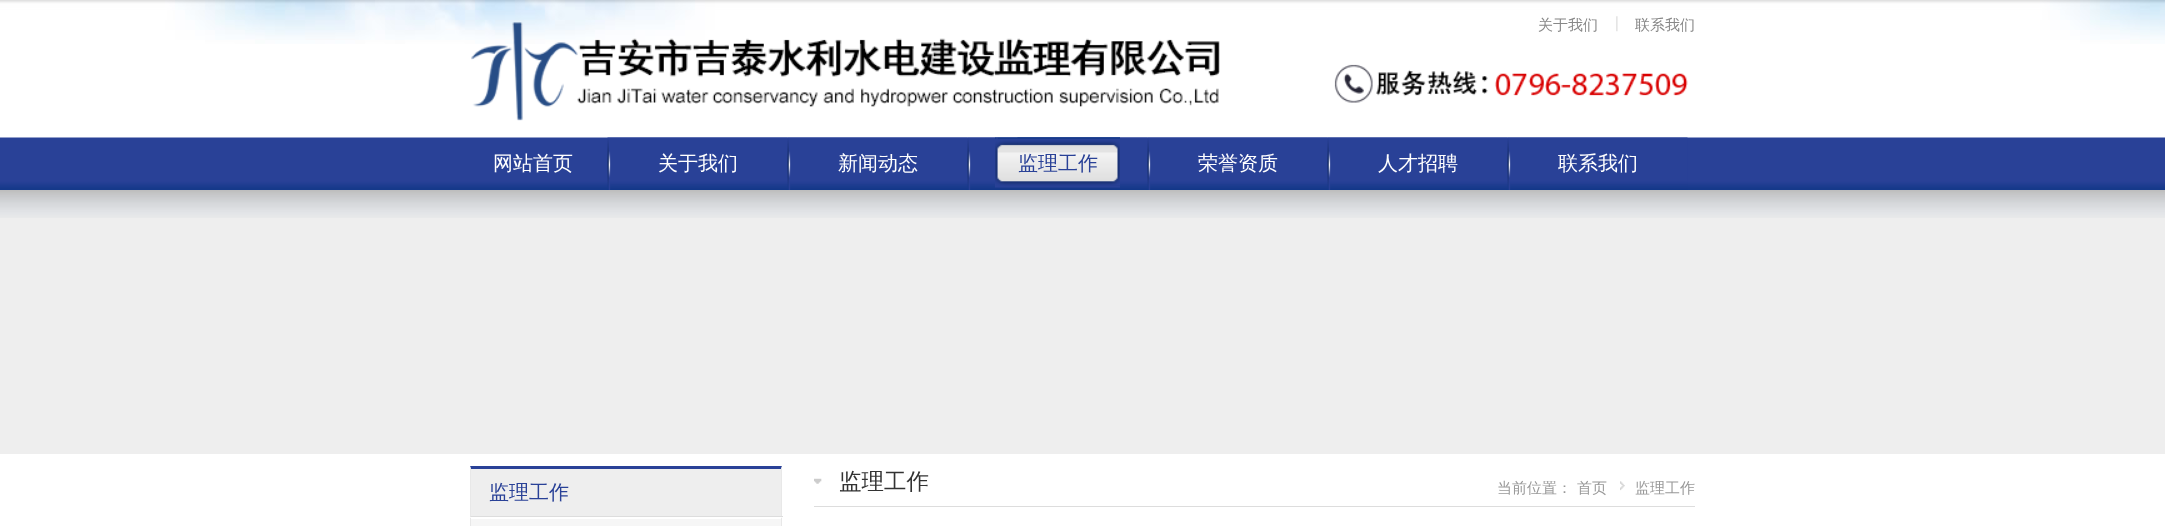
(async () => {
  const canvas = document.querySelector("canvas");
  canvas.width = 2165;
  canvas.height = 526;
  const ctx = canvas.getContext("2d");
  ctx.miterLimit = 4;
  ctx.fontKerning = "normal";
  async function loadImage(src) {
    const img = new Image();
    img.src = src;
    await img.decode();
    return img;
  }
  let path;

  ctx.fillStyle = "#ffffff";
  ctx.fillRect(0, 0, 2165, 526);
  ctx.drawImage(await loadImage("img/1.png"), 0, 0, 2165, 44);
  ctx.drawImage(await loadImage("img/2.png"), 471, 22, 749, 99);
  ctx.drawImage(await loadImage("img/3.png"), 1616, 16, 2, 16);
  ctx.drawImage(await loadImage("img/4.png"), 1334, 64, 354, 39);
  ctx.drawImage(await loadImage("img/5.png"), 0, 137, 2165, 53);
  ctx.drawImage(await loadImage("img/6.png"), 607, 137, 181, 53);
  ctx.drawImage(await loadImage("img/7.png"), 787, 137, 181, 53);
  ctx.drawImage(await loadImage("img/7.png"), 967, 137, 181, 53);
  ctx.drawImage(await loadImage("img/8.png"), 995, 137, 125, 51);
  ctx.drawImage(await loadImage("img/9.png"), 1017, 137, 103, 48);
  ctx.drawImage(await loadImage("img/7.png"), 1147, 137, 181, 53);
  ctx.drawImage(await loadImage("img/7.png"), 1327, 137, 181, 53);
  ctx.drawImage(await loadImage("img/7.png"), 1507, 137, 181, 53);
  ctx.fillStyle = "#eeeeee";
  ctx.fillRect(0, 190, 2165, 264);
  ctx.drawImage(await loadImage("img/10.png"), 0, 190, 2165, 28);
  ctx.fillRect(471, 469, 310, 47);
  ctx.fillStyle = "#294197";
  path = new Path2D("M470 466H782L781 469H471Z");
  ctx.fill(path);
  ctx.fillStyle = "#e8e8e8";
  path = new Path2D("M782 466V518L781 516V469Z");
  ctx.fill(path);
  ctx.fillStyle = "#dddddd";
  ctx.fillRect(470, 516, 313, 1);
  ctx.fillStyle = "#e8e8e8";
  path = new Path2D("M470 518V466L471 469V516Z");
  ctx.fill(path);
  for (const [x, y, w, h, color] of [
    [781, 518, 1, 8, "#e8e8e8"],
    [470, 518, 1, 8, "#e8e8e8"],
    [471, 519, 310, 7, "#f6f6f6"],
    [814, 506, 881, 1, "#dddddd"],
  ]) {
    ctx.fillStyle = color;
    ctx.fillRect(x, y, w, h);
  }
  ctx.drawImage(await loadImage("img/11.png"), 814, 478, 8, 6);
  ctx.drawImage(await loadImage("img/12.png"), 1620, 481, 5, 10);
  ctx.font = "500 15px WenQuanYi Zen Hei";
  ctx.fillStyle = "#888888";
  ctx.fillText("关于我们", 1538, 30);
  ctx.fillText("联系我们", 1635, 30);
  ctx.font = "500 20px WenQuanYi Zen Hei";
  ctx.fillStyle = "#ffffff";
  for (const [text, x, y] of [
    ["网站首页", 493, 170],
    ["关于我们", 658, 170],
    ["新闻动态", 838, 170],
  ]) {
    ctx.fillText(text, x, y);
  }
  ctx.fillStyle = "#294197";
  ctx.fillText("监理工作", 1018, 170);
  ctx.fillStyle = "#ffffff";
  for (const [text, x, y] of [
    ["荣誉资质", 1198, 170],
    ["人才招聘", 1378, 170],
    ["联系我们", 1558, 170],
  ]) {
    ctx.fillText(text, x, y);
  }
  ctx.fillStyle = "#294197";
  ctx.fillText("监理工作", 489, 499);
  ctx.font = "500 22.5px WenQuanYi Zen Hei";
  ctx.fillStyle = "#333333";
  ctx.fillText("监理工作", 839, 489);
  ctx.font = "500 15px WenQuanYi Zen Hei";
  ctx.fillStyle = "#999999";
  for (const [text, x, y] of [
    ["当前位置：", 1497, 493],
    ["首页", 1577, 493],
    ["监理工作", 1635, 493],
  ]) {
    ctx.fillText(text, x, y);
  }
})();
